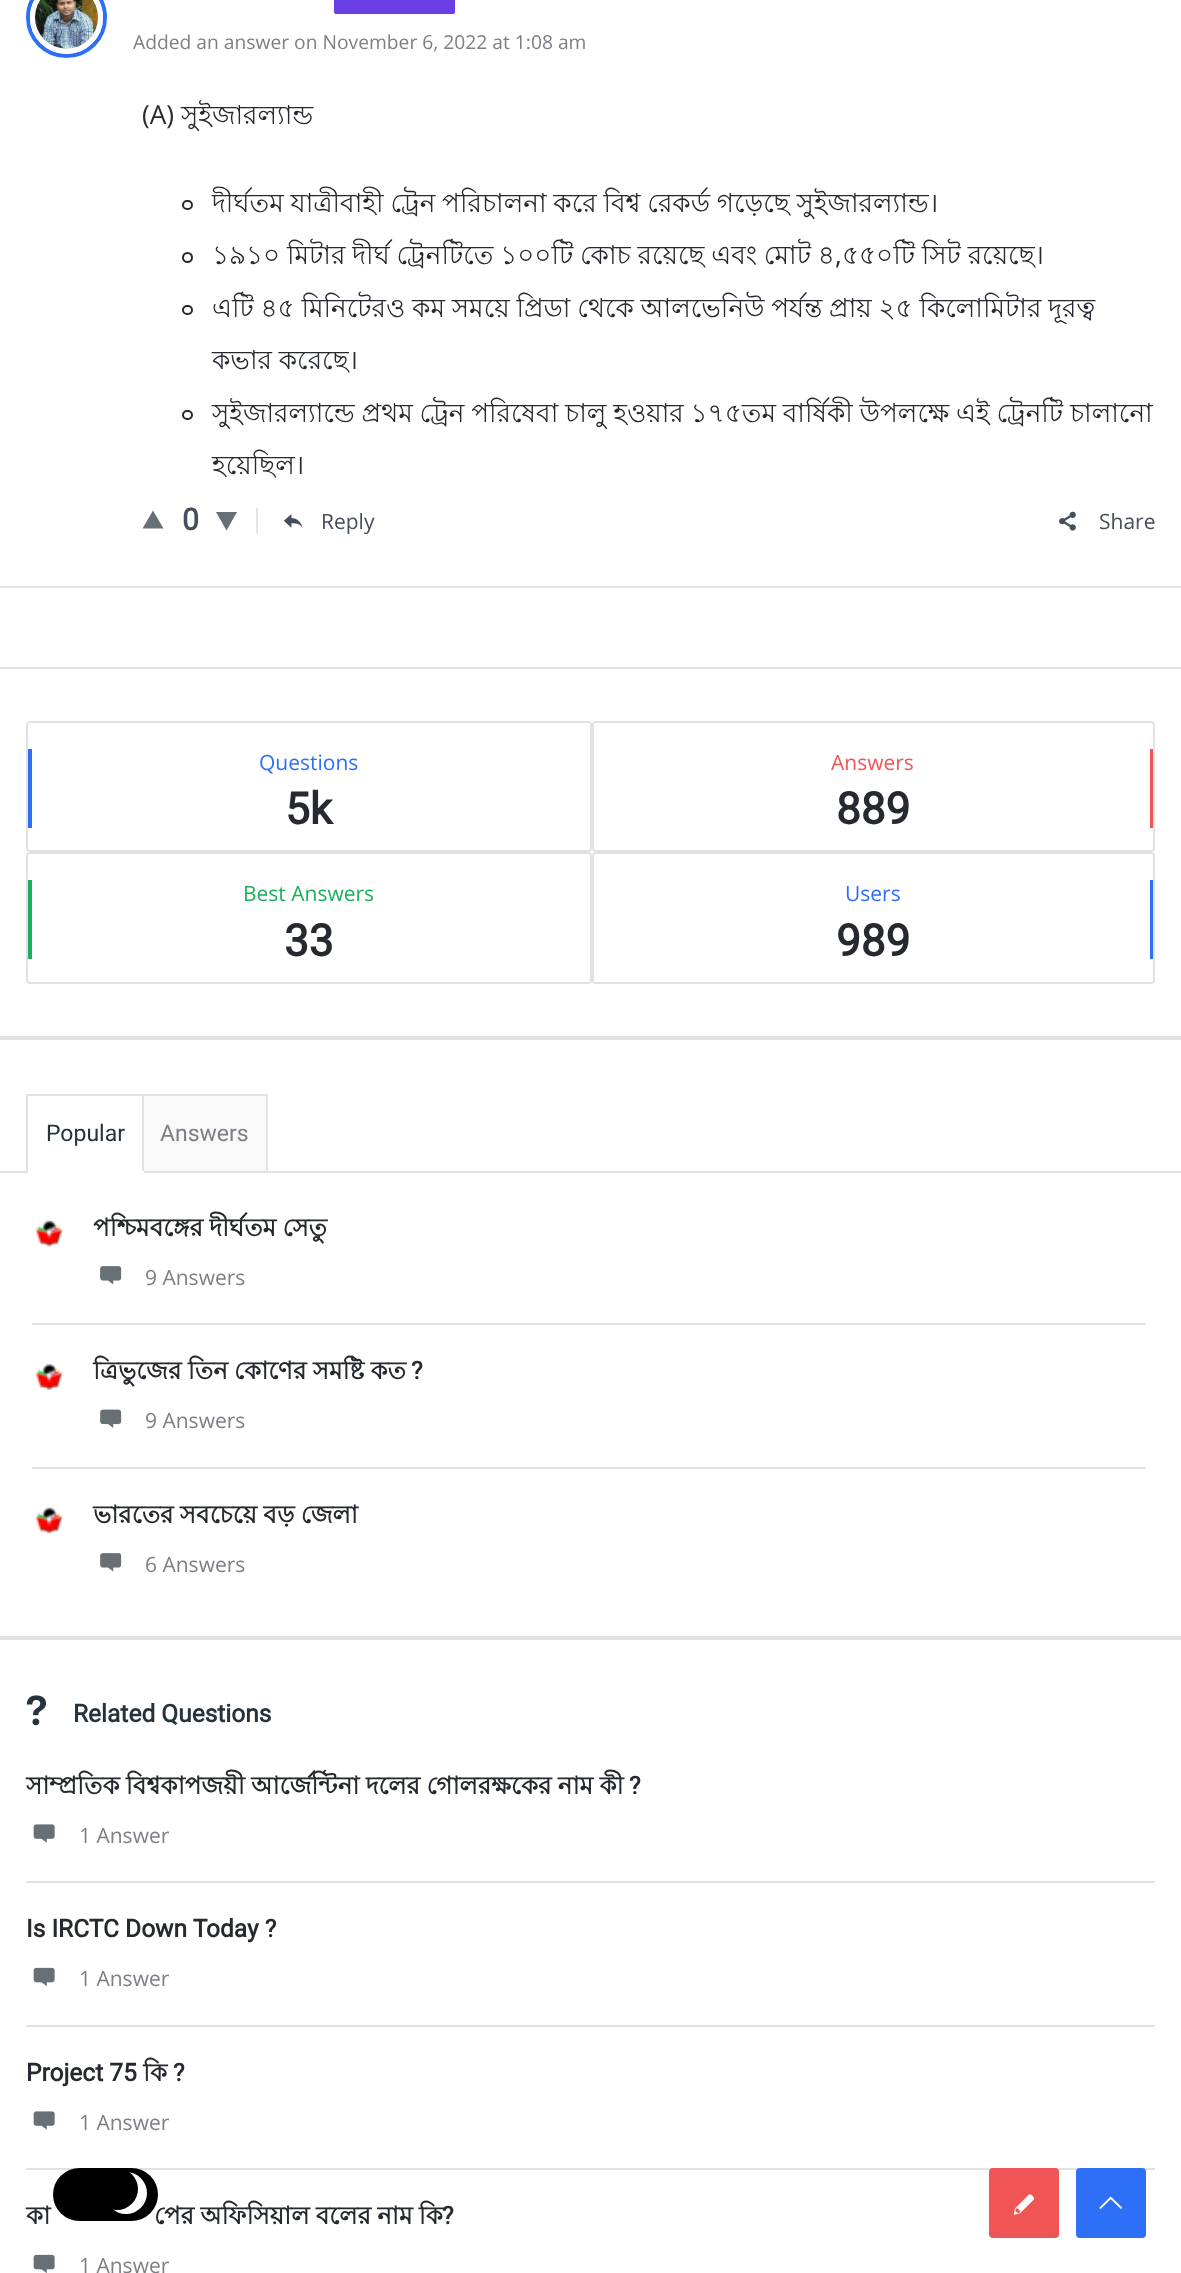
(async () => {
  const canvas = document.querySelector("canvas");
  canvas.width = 1181;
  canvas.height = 2273;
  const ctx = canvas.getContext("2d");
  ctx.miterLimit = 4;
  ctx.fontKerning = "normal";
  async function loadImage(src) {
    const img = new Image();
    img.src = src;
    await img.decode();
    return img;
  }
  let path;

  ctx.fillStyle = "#e1e3e3";
  ctx.fillRect(0, 0, 1181, 2273);
  ctx.fillStyle = "#ffffff";
  ctx.fillRect(0, 0, 1181, 667);
  ctx.fillStyle = "#e4e6e6";
  ctx.fillRect(0, 586, 1181, 2);
  ctx.beginPath();
  ctx.arc(66.5, 17.5, 38.5, 0, Math.PI * 2);
  ctx.strokeStyle = "#2d6ff7";
  ctx.lineWidth = 4;
  ctx.stroke();
  ctx.beginPath();
  ctx.arc(66.5, 17.5, 34, 0, Math.PI * 2);
  ctx.strokeStyle = "#ffffff";
  ctx.lineWidth = 5;
  ctx.stroke();
  ctx.drawImage(await loadImage("img/1.png"), 35, 0, 63, 49);
  ctx.fillStyle = "#6b3de4";
  ctx.beginPath();
  ctx.roundRect(334, -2, 121, 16, 2);
  ctx.fill();
  ctx.beginPath();
  ctx.roundRect(183, 201, 9, 8, 4);
  ctx.strokeStyle = "#272930";
  ctx.lineWidth = 2;
  ctx.stroke();
  ctx.beginPath();
  ctx.arc(187.5, 257.5, 4.5, 0, Math.PI * 2);
  ctx.stroke();
  ctx.beginPath();
  ctx.roundRect(183, 306, 9, 8, 4);
  ctx.stroke();
  ctx.beginPath();
  ctx.roundRect(183, 411, 9, 8, 4);
  ctx.stroke();
  ctx.fillStyle = "#e4e6e6";
  ctx.fillRect(256, 508, 2, 26);
  ctx.fillStyle = "#677075";
  path = new Path2D("M142.5 528.5L153 510.5L163.5 528.5Z");
  ctx.fill(path);
  path = new Path2D("M237 512L226.5 530.5L216 512Z");
  ctx.fill(path);
  ctx.drawImage(await loadImage("img/2.png"), 283, 514, 20, 14);
  ctx.drawImage(await loadImage("img/3.png"), 1059, 511, 17, 20);
  ctx.fillStyle = "#ffffff";
  ctx.fillRect(0, 669, 1181, 1604);
  ctx.fillStyle = "#e1e3e3";
  ctx.fillRect(0, 1036, 1181, 4);
  ctx.beginPath();
  ctx.roundRect(27, 722, 564, 129, 3);
  ctx.strokeStyle = "#e1e3e3";
  ctx.stroke();
  ctx.fillStyle = "#2d6ff7";
  ctx.fillRect(28, 749, 4, 79);
  ctx.beginPath();
  ctx.roundRect(593, 722, 561, 129, 3);
  ctx.stroke();
  ctx.fillStyle = "#f05555";
  ctx.fillRect(1150, 749, 3, 79);
  ctx.beginPath();
  ctx.roundRect(27, 853, 564, 130, 3);
  ctx.stroke();
  ctx.fillStyle = "#1fae5b";
  ctx.fillRect(28, 880, 4, 79);
  ctx.beginPath();
  ctx.roundRect(593, 853, 561, 130, 3);
  ctx.stroke();
  for (const [x, y, w, h, color] of [
    [1150, 880, 3, 79, "#2d6ff7"],
    [0, 1636, 1181, 4, "#e1e3e3"],
    [0, 1171, 1181, 2, "#e1e3e3"],
  ]) {
    ctx.fillStyle = color;
    ctx.fillRect(x, y, w, h);
  }
  ctx.strokeRect(27, 1095, 116, 77);
  for (const [x, y, w, h, color] of [
    [28, 1171, 116, 2, "#ffffff"],
    [144, 1096, 122, 75, "#f9f9f9"],
    [144, 1094, 124, 2, "#e1e3e3"],
    [266, 1094, 2, 79, "#e1e3e3"],
    [32, 1323, 1114, 2, "#e1e3e3"],
  ]) {
    ctx.fillStyle = color;
    ctx.fillRect(x, y, w, h);
  }
  ctx.drawImage(await loadImage("img/4.png"), 34, 1219, 30, 29);
  ctx.drawImage(await loadImage("img/5.png"), 100, 1266, 22, 19);
  ctx.fillRect(32, 1467, 1114, 2);
  ctx.drawImage(await loadImage("img/6.png"), 34, 1363, 30, 28);
  ctx.drawImage(await loadImage("img/7.png"), 100, 1409, 22, 19);
  ctx.drawImage(await loadImage("img/4.png"), 34, 1506, 30, 29);
  ctx.drawImage(await loadImage("img/5.png"), 100, 1553, 22, 19);
  ctx.drawImage(await loadImage("img/8.png"), 26, 1695, 20, 31);
  ctx.fillRect(26, 1881, 1129, 2);
  ctx.drawImage(await loadImage("img/9.png"), 33, 1824, 22, 19);
  ctx.fillRect(26, 2025, 1129, 2);
  ctx.drawImage(await loadImage("img/10.png"), 33, 1967, 22, 20);
  ctx.fillRect(26, 2168, 1129, 2);
  ctx.drawImage(await loadImage("img/9.png"), 33, 2111, 22, 19);
  ctx.drawImage(await loadImage("img/11.png"), 33, 2254, 22, 19);
  ctx.fillStyle = "#f05555";
  ctx.beginPath();
  ctx.roundRect(989, 2168, 70, 70, 4);
  ctx.fill();
  ctx.drawImage(await loadImage("img/12.png"), 1013, 2194, 22, 21);
  ctx.fillStyle = "#2d6ff7";
  ctx.beginPath();
  ctx.roundRect(1076, 2168, 70, 70, 4);
  ctx.fill();
  ctx.drawImage(await loadImage("img/13.png"), 1099, 2196, 23, 13);
  ctx.font = "19.25px Open Sans";
  ctx.fillStyle = "#7c7f85";
  ctx.fillText("Added an answer on November 6, 2022 at 1:08 am", 133, 49);
  ctx.font = "26.25px Open Sans";
  ctx.fillStyle = "#272930";
  ctx.fillText("(A)", 142, 124);
  ctx.font = "26.25px Lohit Bengali";
  ctx.fillText("সুইজারল্যান্ড", 181, 124);
  ctx.wordSpacing = "-0.5px";
  for (const [text, x, y] of [
    ["দীর্ঘতম যাত্রীবাহী ট্রেন পরিচালনা করে বিশ্ব রেকর্ড গড়েছে সুইজারল্যান্ড।", 212, 212],
    ["১৯১০ মিটার দীর্ঘ ট্রেনটিতে ১০০টি কোচ রয়েছে এবং মোট ৪", 212, 264],
    ["৫৫০টি সিট রয়েছে।", 842, 264],
  ]) {
    ctx.fillText(text, x, y);
  }
  ctx.wordSpacing = "0px";
  ctx.font = "26.25px Open Sans";
  ctx.fillText(",", 835, 264);
  ctx.wordSpacing = "-0.5px";
  ctx.font = "26.25px Lohit Bengali";
  for (const [text, x, y] of [
    ["এটি ৪৫ মিনিটেরও কম সময়ে প্রিডা থেকে আলভেনিউ পর্যন্ত প্রায় ২৫ কিলোমিটার দূরত্ব", 212, 317],
    ["কভার করেছে।", 212, 369],
    ["সুইজারল্যান্ডে প্রথম ট্রেন পরিষেবা চালু হওয়ার ১৭৫তম বার্ষিকী উপলক্ষে এই ট্রেনটি চালানো", 212, 422],
  ]) {
    ctx.fillText(text, x, y);
  }
  ctx.wordSpacing = "0px";
  ctx.fillText("হয়েছিল।", 212, 474);
  ctx.font = "bold 30px Roboto";
  ctx.fillStyle = "#464e5b";
  ctx.fillText("0", 182, 530);
  ctx.font = "21px Open Sans";
  ctx.fillText("Reply", 321, 529);
  ctx.fillText("Share", 1099, 529);
  ctx.fillStyle = "#2d6ff7";
  ctx.fillText("Questions", 259, 770);
  ctx.font = "bold 44px Roboto";
  ctx.fillStyle = "#272930";
  ctx.fillText("5k", 285, 824);
  ctx.font = "21px Open Sans";
  ctx.fillStyle = "#f05555";
  ctx.fillText("Answers", 831, 770);
  ctx.font = "bold 44px Roboto";
  ctx.fillStyle = "#272930";
  ctx.fillText("889", 836, 824);
  ctx.font = "21px Open Sans";
  ctx.fillStyle = "#1fae5b";
  ctx.fillText("Best Answers", 243, 901);
  ctx.font = "bold 44px Roboto";
  ctx.fillStyle = "#272930";
  ctx.fillText("33", 284, 956);
  ctx.font = "21px Open Sans";
  ctx.fillStyle = "#2d6ff7";
  ctx.fillText("Users", 845, 901);
  ctx.font = "bold 44px Roboto";
  ctx.fillStyle = "#272930";
  ctx.fillText("989", 836, 956);
  ctx.font = "23px Roboto";
  ctx.fillStyle = "#26333b";
  ctx.fillText("Popular", 46, 1141);
  ctx.fillStyle = "#7c7f85";
  ctx.fillText("Answers", 160, 1141);
  ctx.wordSpacing = "-0.5px";
  ctx.font = "bold 24.5px Lohit Bengali";
  ctx.fillStyle = "#272930";
  ctx.fillText("পশ্চিমবঙ্গের দীর্ঘতম সেতু", 93, 1236);
  ctx.wordSpacing = "0px";
  ctx.font = "21px Open Sans";
  ctx.fillStyle = "#7c7f85";
  ctx.fillText("9 Answers", 145, 1285);
  ctx.wordSpacing = "-0.5px";
  ctx.font = "bold 24.5px Lohit Bengali";
  ctx.fillStyle = "#272930";
  ctx.fillText("ত্রিভুজের তিন কোণের সমষ্টি কত", 93, 1379);
  ctx.wordSpacing = "0px";
  ctx.font = "bold 24.5px Roboto";
  ctx.fillText("?", 411, 1379);
  ctx.font = "21px Open Sans";
  ctx.fillStyle = "#7c7f85";
  ctx.fillText("9 Answers", 145, 1428);
  ctx.wordSpacing = "-0.5px";
  ctx.font = "bold 24.5px Lohit Bengali";
  ctx.fillStyle = "#272930";
  ctx.fillText("ভারতের সবচেয়ে বড় জেলা", 93, 1523);
  ctx.wordSpacing = "0px";
  ctx.font = "21px Open Sans";
  ctx.fillStyle = "#7c7f85";
  ctx.fillText("6 Answers", 145, 1572);
  ctx.font = "bold 24.5px Roboto";
  ctx.fillStyle = "#26333b";
  ctx.fillText("Related Questions", 73, 1722);
  ctx.wordSpacing = "-0.5px";
  ctx.font = "bold 24.5px Lohit Bengali";
  ctx.fillStyle = "#272930";
  ctx.fillText("সাম্প্রতিক বিশ্বকাপজয়ী আর্জেন্টিনা দলের গোলরক্ষকের নাম কী", 26, 1794);
  ctx.wordSpacing = "0px";
  ctx.font = "bold 24.5px Roboto";
  ctx.fillText("?", 629, 1794);
  ctx.font = "21px Open Sans";
  ctx.fillStyle = "#7c7f85";
  ctx.fillText("1 Answer", 79, 1843);
  ctx.font = "bold 24.5px Roboto";
  ctx.fillStyle = "#272930";
  ctx.fillText("Is IRCTC Down Today ?", 26, 1937);
  ctx.font = "21px Open Sans";
  ctx.fillStyle = "#7c7f85";
  ctx.fillText("1 Answer", 79, 1986);
  ctx.font = "bold 24.5px Roboto";
  ctx.fillStyle = "#272930";
  ctx.fillText("Project 75", 26, 2081);
  ctx.font = "bold 24.5px Lohit Bengali";
  ctx.fillText("কি", 143, 2081);
  ctx.font = "bold 24.5px Roboto";
  ctx.fillText("?", 173, 2081);
  ctx.font = "21px Open Sans";
  ctx.fillStyle = "#7c7f85";
  ctx.fillText("1 Answer", 79, 2130);
  ctx.wordSpacing = "-0.5px";
  ctx.font = "bold 24.5px Lohit Bengali";
  ctx.fillStyle = "#272930";
  ctx.fillText("কা", 26, 2224);
  ctx.fillText("পের অফিসিয়াল বলের নাম কি", 154, 2224);
  ctx.wordSpacing = "0px";
  ctx.font = "bold 24.5px Roboto";
  ctx.fillText("?", 442, 2224);
  ctx.font = "21px Open Sans";
  ctx.fillStyle = "#7c7f85";
  ctx.fillText("1 Answer", 79, 2273);
  ctx.fillStyle = "#000000";
  ctx.beginPath();
  ctx.roundRect(53, 2168, 105, 53, 26.5);
  ctx.fill();
  ctx.fillStyle = "#ffffff";
  ctx.beginPath();
  ctx.arc(126, 2193, 21, 0, Math.PI * 2);
  ctx.fill();
  ctx.fillStyle = "#000000";
  ctx.beginPath();
  ctx.arc(117, 2189, 21, 0, Math.PI * 2);
  ctx.fill();
})();
